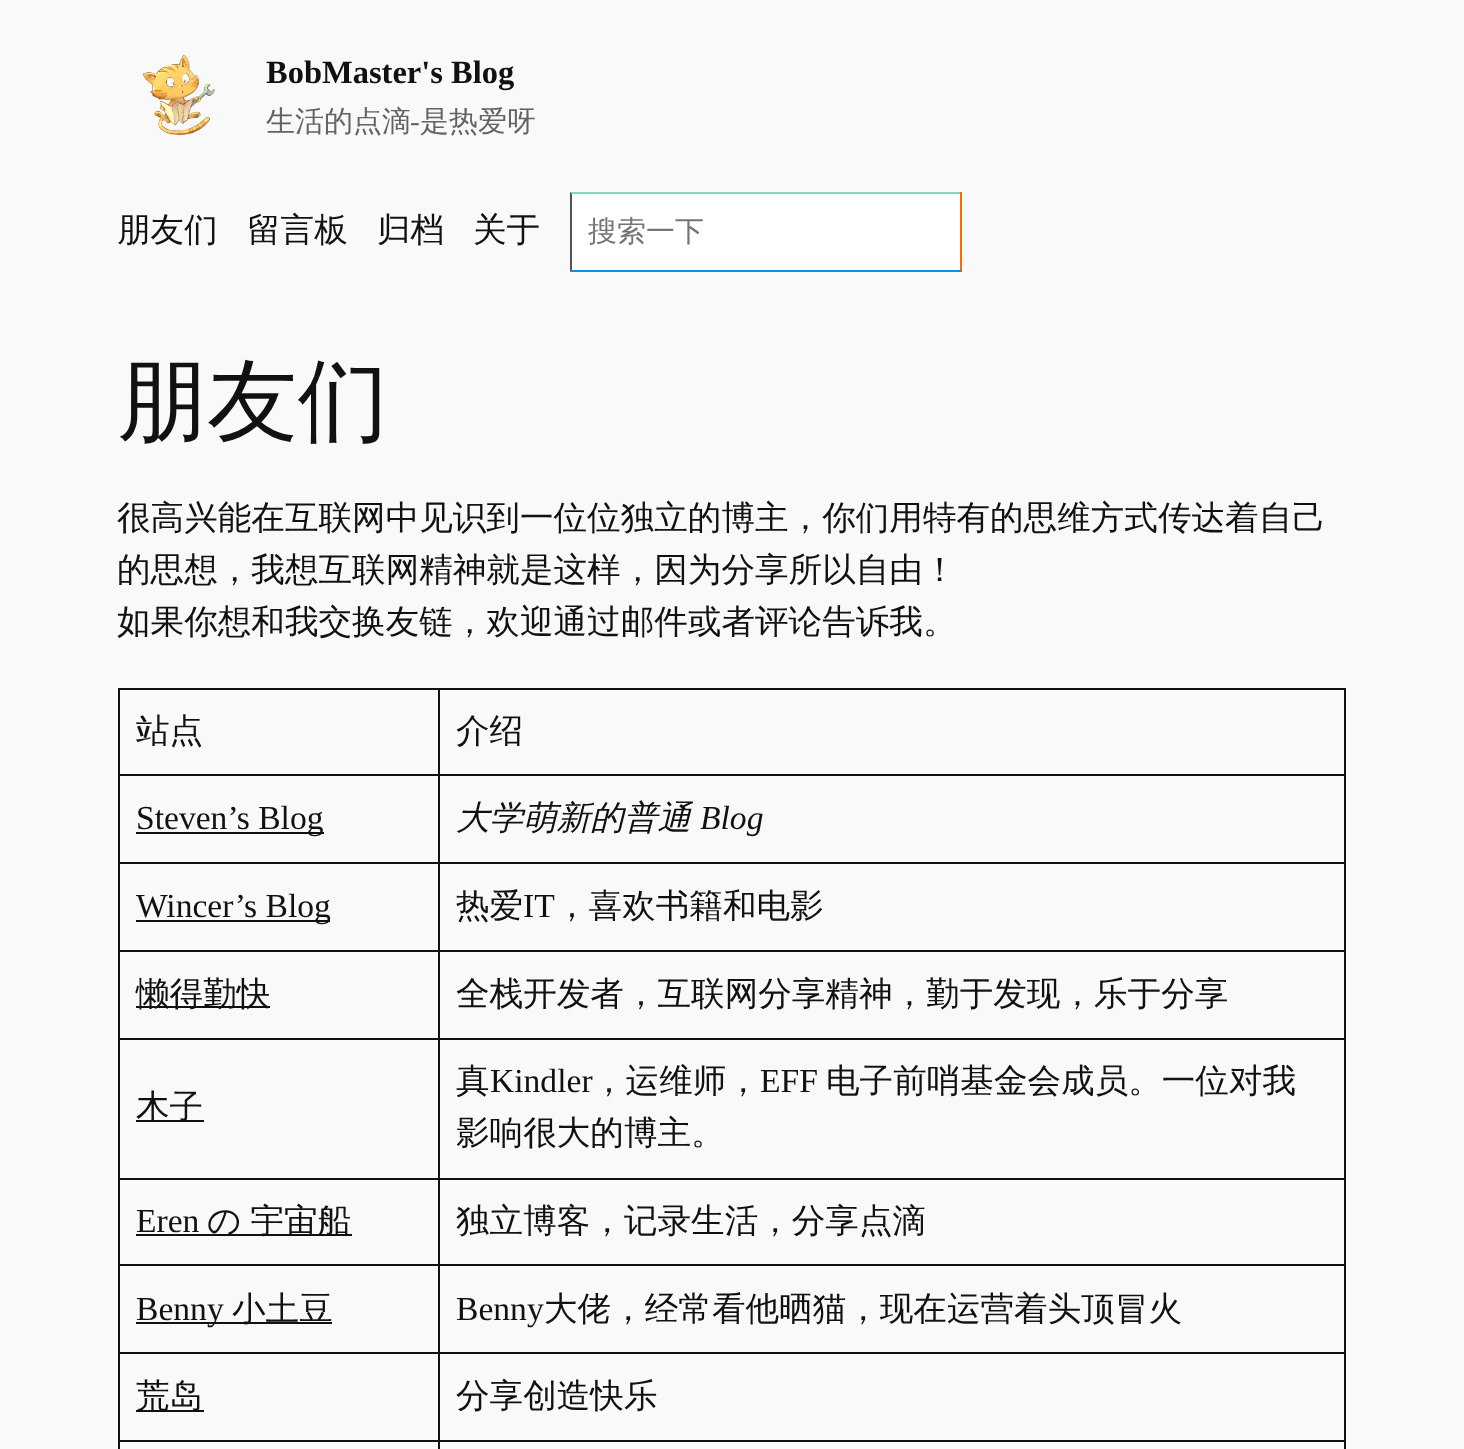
(async () => {
  const canvas = document.querySelector("canvas");
  canvas.width = 1464;
  canvas.height = 1449;
  const ctx = canvas.getContext("2d");
  ctx.miterLimit = 4;
  ctx.fontKerning = "normal";
  async function loadImage(src) {
    const img = new Image();
    img.src = src;
    await img.decode();
    return img;
  }
  let path;

  ctx.fillStyle = "#f9f9f9";
  ctx.fillRect(0, 0, 1464, 1449);
  ctx.drawImage(await loadImage("img/1.png"), 142, 54, 73, 82);
  ctx.fillStyle = "#ffffff";
  ctx.fillRect(570, 192, 390, 80);
  ctx.fillStyle = "#7bdcb5";
  path = new Path2D("M570 192H962L960 194H572Z");
  ctx.fill(path);
  ctx.fillStyle = "#ff6900";
  ctx.fillRect(960, 192, 2, 80);
  ctx.fillStyle = "#0693e3";
  path = new Path2D("M962 272H570L572 270H960Z");
  ctx.fill(path);
  ctx.fillStyle = "rgba(80, 81, 85, 0.98)";
  path = new Path2D("M570 272V192L572 194V270Z");
  ctx.fill(path);
  for (const [x, y, w, h, color] of [
    [438, 688, 908, 2, "#111111"],
    [438, 774, 908, 2, "#111111"],
    [438, 862, 908, 2, "#111111"],
    [438, 950, 908, 2, "#111111"],
    [438, 1038, 908, 2, "#111111"],
    [438, 1178, 908, 2, "#111111"],
    [438, 1264, 908, 2, "#111111"],
    [438, 1352, 908, 2, "#111111"],
    [438, 1440, 908, 2, "#111111"],
    [438, 1440, 2, 9, "#111111"],
    [118, 1440, 322, 2, "#111111"],
    [438, 1352, 2, 90, "#111111"],
    [118, 1352, 322, 2, "#111111"],
    [438, 1264, 2, 90, "#111111"],
    [118, 1264, 322, 2, "#111111"],
    [438, 1178, 2, 88, "#111111"],
    [118, 1178, 322, 2, "#111111"],
    [438, 1038, 2, 142, "#111111"],
    [118, 1038, 322, 2, "#111111"],
    [438, 950, 2, 90, "#111111"],
    [118, 950, 322, 2, "#111111"],
    [438, 862, 2, 90, "#111111"],
    [118, 862, 322, 2, "#111111"],
    [438, 774, 2, 90, "#111111"],
    [118, 774, 322, 2, "#111111"],
    [438, 688, 2, 88, "#111111"],
    [118, 688, 322, 2, "#111111"],
    [118, 1440, 2, 9, "#111111"],
    [118, 1352, 2, 90, "#111111"],
    [118, 1264, 2, 90, "#111111"],
    [118, 1178, 2, 88, "#111111"],
    [118, 1038, 2, 142, "#111111"],
    [118, 950, 2, 90, "#111111"],
    [118, 862, 2, 90, "#111111"],
    [118, 774, 2, 90, "#111111"],
    [118, 688, 2, 88, "#111111"],
    [1344, 1440, 2, 9, "#111111"],
    [1344, 1352, 2, 90, "#111111"],
    [1344, 1264, 2, 90, "#111111"],
    [1344, 1178, 2, 88, "#111111"],
    [1344, 1038, 2, 142, "#111111"],
    [1344, 950, 2, 90, "#111111"],
    [1344, 862, 2, 90, "#111111"],
    [1344, 774, 2, 90, "#111111"],
    [1344, 688, 2, 88, "#111111"],
    [136, 832, 188, 2, "#111111"],
    [136, 920, 194, 2, "#111111"],
    [136, 1006, 134, 2, "#111111"],
    [136, 1120, 68, 2, "#111111"],
    [136, 1234, 216, 2, "#111111"],
    [136, 1322, 196, 2, "#111111"],
    [136, 1410, 68, 2, "#111111"],
  ]) {
    ctx.fillStyle = color;
    ctx.fillRect(x, y, w, h);
  }
  ctx.font = "bold 32.5px Liberation Serif";
  ctx.fillText("BobMaster's Blog", 266, 83);
  ctx.font = "500 29px WenQuanYi Zen Hei";
  ctx.fillStyle = "#636363";
  ctx.fillText("生活的点滴", 266, 131);
  ctx.font = "29px Liberation Serif";
  ctx.fillText("-", 410, 131);
  ctx.font = "500 29px WenQuanYi Zen Hei";
  ctx.fillText("是热爱呀", 420, 131);
  ctx.font = "500 33.6px WenQuanYi Zen Hei";
  ctx.fillStyle = "#111111";
  for (const [text, x, y] of [
    ["朋友们", 117, 241],
    ["留言板", 247, 241],
    ["归档", 377, 241],
    ["关于", 473, 241],
  ]) {
    ctx.fillText(text, x, y);
  }
  ctx.font = "500 29px WenQuanYi Zen Hei";
  ctx.fillStyle = "#757575";
  ctx.fillText("搜索一下", 588, 241);
  ctx.font = "500 90.5px WenQuanYi Zen Hei";
  ctx.fillStyle = "#111111";
  ctx.fillText("朋友们", 117, 432);
  ctx.font = "500 33.6px WenQuanYi Zen Hei";
  for (const [text, x, y] of [
    ["很高兴能在互联网中见识到一位位独立的博主，你们用特有的思维方式传达着自己", 117, 529],
    ["的思想，我想互联网精神就是这样，因为分享所以自由！", 117, 581],
    ["如果你想和我交换友链，欢迎通过邮件或者评论告诉我。", 117, 633],
    ["站点", 136, 742],
    ["介绍", 456, 742],
  ]) {
    ctx.fillText(text, x, y);
  }
  ctx.font = "33.6px Liberation Serif";
  ctx.fillText("Steven’s Blog", 136, 829);
  ctx.font = "italic 500 33.6px WenQuanYi Zen Hei";
  ctx.fillText("大学萌新的普通", 456, 829);
  ctx.font = "italic 33.6px Liberation Serif";
  ctx.fillText("Blog", 700, 829);
  ctx.font = "33.6px Liberation Serif";
  ctx.fillText("Wincer’s Blog", 136, 917);
  ctx.font = "500 33.6px WenQuanYi Zen Hei";
  ctx.fillText("热爱", 456, 917);
  ctx.font = "33.6px Liberation Serif";
  ctx.fillText("IT", 523, 917);
  ctx.font = "500 33.6px WenQuanYi Zen Hei";
  for (const [text, x, y] of [
    ["，喜欢书籍和电影", 555, 917],
    ["懒得勤快", 136, 1005],
    ["全栈开发者，互联网分享精神，勤于发现，乐于分享", 456, 1005],
    ["木子", 136, 1118],
    ["真", 456, 1092],
  ]) {
    ctx.fillText(text, x, y);
  }
  ctx.font = "33.6px Liberation Serif";
  ctx.fillText("Kindler", 490, 1092);
  ctx.font = "500 33.6px WenQuanYi Zen Hei";
  ctx.fillText("，运维师，", 592, 1092);
  ctx.font = "33.6px Liberation Serif";
  ctx.fillText("EFF", 760, 1092);
  ctx.font = "500 33.6px WenQuanYi Zen Hei";
  ctx.fillText("电子前哨基金会成员。一位对我", 826, 1092);
  ctx.fillText("影响很大的博主。", 456, 1144);
  ctx.font = "33.6px Liberation Serif";
  ctx.fillText("Eren", 136, 1232);
  ctx.wordSpacing = "-1px";
  ctx.font = "500 33.6px WenQuanYi Zen Hei";
  ctx.fillText("の 宇宙船", 207, 1232);
  ctx.wordSpacing = "0px";
  ctx.fillText("独立博客，记录生活，分享点滴", 456, 1232);
  ctx.font = "33.6px Liberation Serif";
  ctx.fillText("Benny", 136, 1320);
  ctx.font = "500 33.6px WenQuanYi Zen Hei";
  ctx.fillText("小土豆", 232, 1320);
  ctx.font = "33.6px Liberation Serif";
  ctx.fillText("Benny", 456, 1320);
  ctx.font = "500 33.6px WenQuanYi Zen Hei";
  for (const [text, x, y] of [
    ["大佬，经常看他晒猫，现在运营着头顶冒火", 544, 1320],
    ["荒岛", 136, 1407],
    ["分享创造快乐", 456, 1407],
  ]) {
    ctx.fillText(text, x, y);
  }
})();
